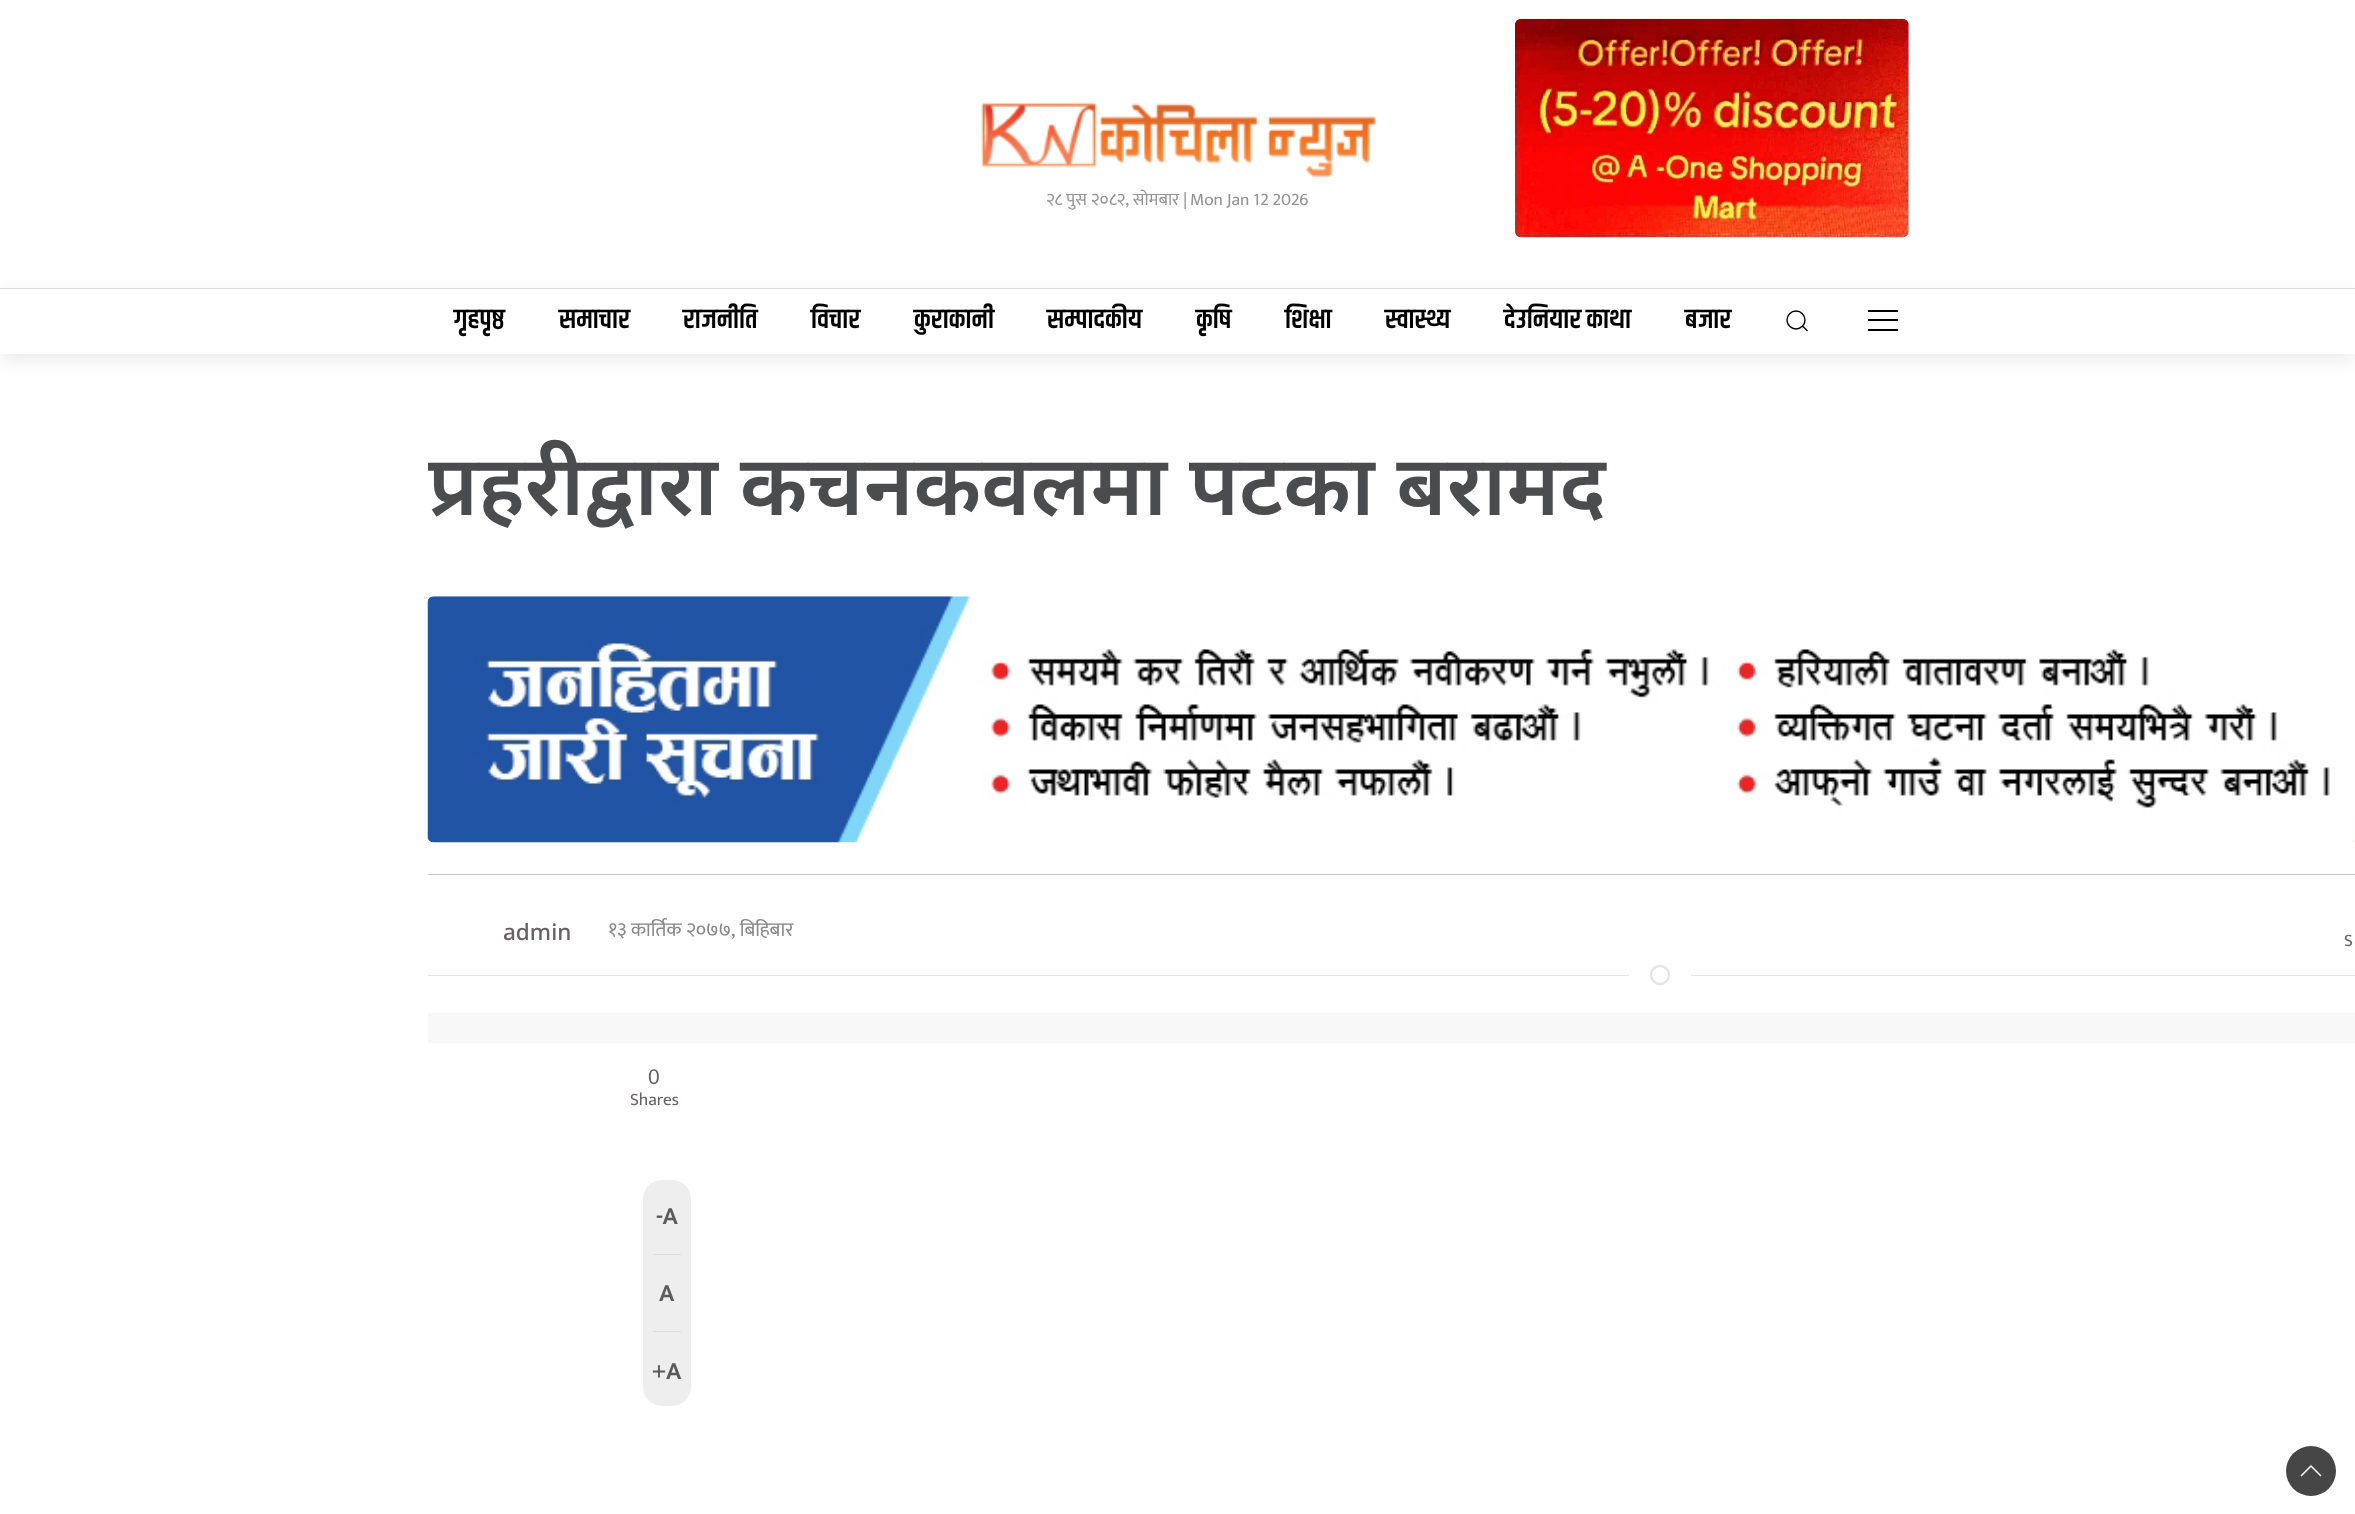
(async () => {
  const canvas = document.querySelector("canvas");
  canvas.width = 2355;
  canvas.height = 1514;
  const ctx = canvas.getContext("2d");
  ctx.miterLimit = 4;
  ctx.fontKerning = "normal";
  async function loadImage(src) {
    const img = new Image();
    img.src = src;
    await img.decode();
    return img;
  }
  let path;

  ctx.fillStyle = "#ffffff";
  ctx.fillRect(0, 0, 2355, 1514);
  ctx.drawImage(await loadImage("img/1.png"), 981, 102, 396, 76);
  ctx.drawImage(await loadImage("img/2.png"), 1515, 18, 394, 220);
  ctx.fillStyle = "rgba(0, 0, 0, 0.08)";
  ctx.filter = "blur(9.5px)";
  ctx.beginPath();
  ctx.rect(0, 294, 2355, 66);
  ctx.fill();
  ctx.filter = "none";
  ctx.fillStyle = "#ffffff";
  ctx.fillRect(0, 289, 2355, 65);
  ctx.fillStyle = "#dddddd";
  ctx.fillRect(0, 288, 2355, 1);
  ctx.beginPath();
  ctx.arc(1796, 320, 9, 0, Math.PI * 2);
  ctx.strokeStyle = "#000000";
  ctx.lineWidth = 1.4;
  ctx.stroke();
  path = new Path2D("M1802.5 326L1807.5 331Z");
  ctx.stroke(path);
  for (const [x, y, w, h, color] of [
    [1868, 310, 30, 2, "#000000"],
    [1868, 319, 30, 2, "#000000"],
    [1868, 329, 30, 2, "#000000"],
  ]) {
    ctx.fillStyle = color;
    ctx.fillRect(x, y, w, h);
  }
  ctx.drawImage(await loadImage("img/3.png"), 427, 596, 1928, 247);
  ctx.fillStyle = "#c7c7c7";
  ctx.fillRect(428, 874, 1927, 1);
  ctx.beginPath();
  ctx.arc(1660, 975, 9, 0, Math.PI * 2);
  ctx.strokeStyle = "#e5e5e5";
  ctx.lineWidth = 2.5;
  ctx.stroke();
  for (const [x, y, w, h, color] of [
    [428, 975, 1201, 1, "#e5e5e5"],
    [1691, 975, 664, 1, "#e5e5e5"],
    [428, 1013, 1927, 30, "#f8f8f8"],
  ]) {
    ctx.fillStyle = color;
    ctx.fillRect(x, y, w, h);
  }
  ctx.fillStyle = "#eeeeee";
  ctx.beginPath();
  ctx.roundRect(643, 1180, 48, 226, 19);
  ctx.fill();
  ctx.fillStyle = "#dddddd";
  ctx.fillRect(653, 1254, 28, 1);
  ctx.fillRect(653, 1331, 28, 1);
  ctx.fillStyle = "#464646";
  ctx.beginPath();
  ctx.arc(2311, 1471, 25, 0, Math.PI * 2);
  ctx.fill();
  path = new Path2D("M2301 1476L2311 1466L2321 1476");
  ctx.strokeStyle = "#ffffff";
  ctx.lineWidth = 1.5;
  ctx.stroke(path);
  ctx.font = "17.5px Mukta";
  ctx.fillStyle = "#939393";
  ctx.fillText("२८ पुस २०८२, सोमबार |", 1046, 205);
  ctx.fillText("Mon Jan 12 2026", 1190, 205);
  ctx.font = "600 27.5px Khand";
  ctx.fillStyle = "#000000";
  for (const [text, x, y] of [
    ["गृहपृष्ठ", 454, 328],
    ["समाचार", 559, 328],
    ["राजनीति", 683, 328],
    ["विचार", 811, 328],
    ["कुराकानी", 914, 328],
    ["सम्पादकीय", 1047, 328],
    ["कृषि", 1196, 328],
    ["शिक्षा", 1285, 328],
    ["स्वास्थ्य", 1385, 328],
    ["देउनियार काथा", 1504, 328],
    ["बजार", 1685, 328],
  ]) {
    ctx.fillText(text, x, y);
  }
  ctx.font = "600 84px Noto Sans";
  ctx.fillStyle = "#4a4c4e";
  ctx.fillText("प्रहरीद्वारा कचनकवलमा पटका बरामद", 428, 515);
  ctx.font = "500 22.5px Noto Sans";
  ctx.fillStyle = "#686161";
  ctx.fillText("admin", 503, 940);
  ctx.font = "20px Mukta";
  ctx.fillStyle = "#878787";
  ctx.fillText("१३ कार्तिक २०७७, बिहिबार", 608, 936);
  ctx.font = "17.5px Mukta";
  ctx.fillStyle = "#686161";
  ctx.fillText("S", 2344, 946);
  ctx.font = "21px Liberation Sans";
  ctx.fillText("0", 648, 1084);
  ctx.font = "17.5px Mukta";
  ctx.fillText("Shares", 630, 1105);
  ctx.font = "600 25px Mukta";
  ctx.fillStyle = "#5c5a5a";
  for (const [text, x, y] of [
    ["-A", 656, 1224],
    ["A", 659, 1301],
    ["+A", 652, 1379],
  ]) {
    ctx.fillText(text, x, y);
  }
})();
